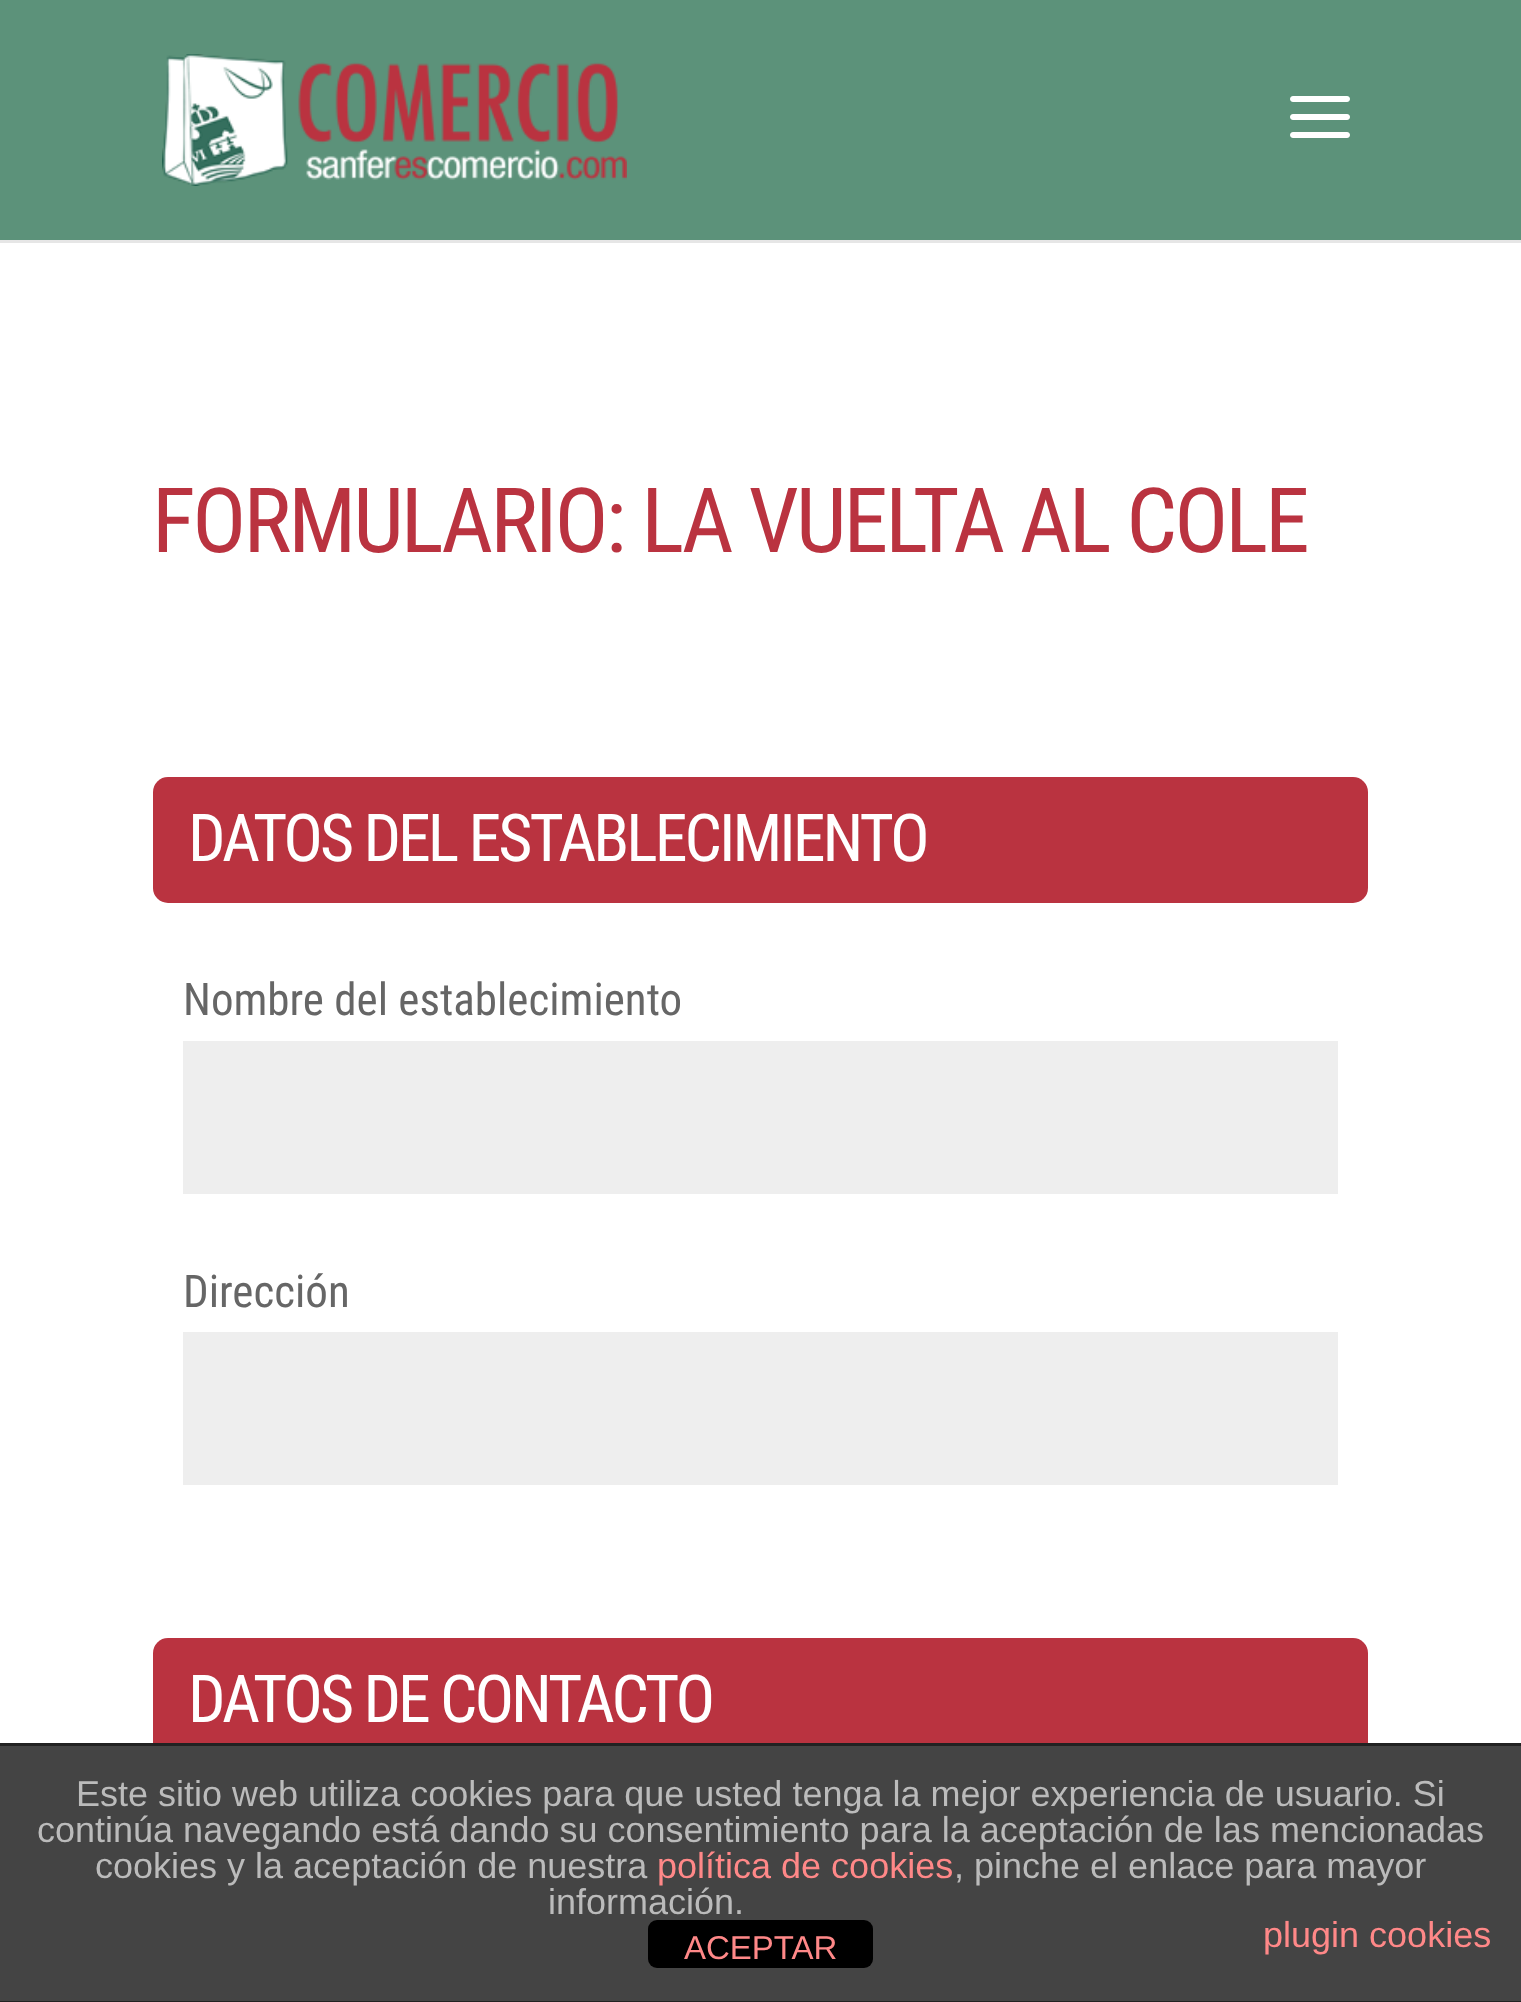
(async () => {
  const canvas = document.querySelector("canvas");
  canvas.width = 1521;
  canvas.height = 2002;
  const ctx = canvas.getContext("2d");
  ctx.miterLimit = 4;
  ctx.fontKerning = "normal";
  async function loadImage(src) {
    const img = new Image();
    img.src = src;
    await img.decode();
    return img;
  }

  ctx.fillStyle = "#ffffff";
  ctx.fillRect(0, 0, 1521, 2002);
  ctx.fillStyle = "#e6e6e6";
  ctx.fillRect(0, 240, 1521, 3);
  ctx.fillStyle = "#5c927a";
  ctx.fillRect(0, 0, 1521, 240);
  ctx.drawImage(await loadImage("img/1.png"), 162, 54, 465, 132);
  ctx.drawImage(await loadImage("img/2.png"), 1290, 96, 60, 42);
  ctx.fillStyle = "#ba3340";
  ctx.beginPath();
  ctx.roundRect(153, 777, 1215, 126, 15);
  ctx.fill();
  ctx.fillStyle = "#eeeeee";
  ctx.fillRect(183, 1041, 1155, 153);
  ctx.fillRect(183, 1332, 1155, 153);
  ctx.fillStyle = "#ba3340";
  ctx.beginPath();
  ctx.roundRect(153, 1638, 1215, 126, 15);
  ctx.fill();
  for (const [x, y, w, h, color] of [
    [0, 1746, 1521, 255, "#444444"],
    [0, 1743, 1521, 3, "#222222"],
    [0, 2001, 1521, 1, "#222222"],
  ]) {
    ctx.fillStyle = color;
    ctx.fillRect(x, y, w, h);
  }
  ctx.fillStyle = "#000000";
  ctx.beginPath();
  ctx.roundRect(648, 1920, 225, 48, 9);
  ctx.fill();
  ctx.letterSpacing = "-3px";
  ctx.font = "90px Roboto Condensed";
  ctx.fillStyle = "#ba3340";
  ctx.fillText("FORMULARIO: LA VUELTA AL COLE", 152, 552);
  ctx.font = "66px Roboto Condensed";
  ctx.fillStyle = "#ffffff";
  ctx.fillText("DATOS DEL ESTABLECIMIENTO", 188, 861);
  ctx.letterSpacing = "0px";
  ctx.font = "45px Roboto Condensed";
  ctx.fillStyle = "#666666";
  ctx.fillText("Nombre del establecimiento", 183, 1015);
  ctx.fillText("Dirección", 183, 1307);
  ctx.letterSpacing = "-3px";
  ctx.font = "66px Roboto Condensed";
  ctx.fillStyle = "#ffffff";
  ctx.fillText("DATOS DE CONTACTO", 188, 1722);
  ctx.letterSpacing = "0px";
  ctx.font = "36px Liberation Sans";
  ctx.fillStyle = "#bbbbbb";
  for (const [text, x, y] of [
    ["Este sitio web utiliza cookies para que usted tenga la mejor experiencia de usuario. Si", 76, 1806],
    ["continúa navegando está dando su consentimiento para la aceptación de las mencionadas", 37, 1842],
    ["cookies y la aceptación de nuestra", 95, 1878],
  ]) {
    ctx.fillText(text, x, y);
  }
  ctx.fillStyle = "#ff8888";
  ctx.fillText("política de cookies", 657, 1878);
  ctx.fillStyle = "#bbbbbb";
  ctx.fillText(", pinche el enlace para mayor", 954, 1878);
  ctx.fillText("información.", 548, 1914);
  ctx.fillStyle = "#ff8888";
  ctx.fillText("plugin cookies", 1263, 1947);
  ctx.font = "33px Liberation Sans";
  ctx.fillText("ACEPTAR", 684, 1959);
})();
